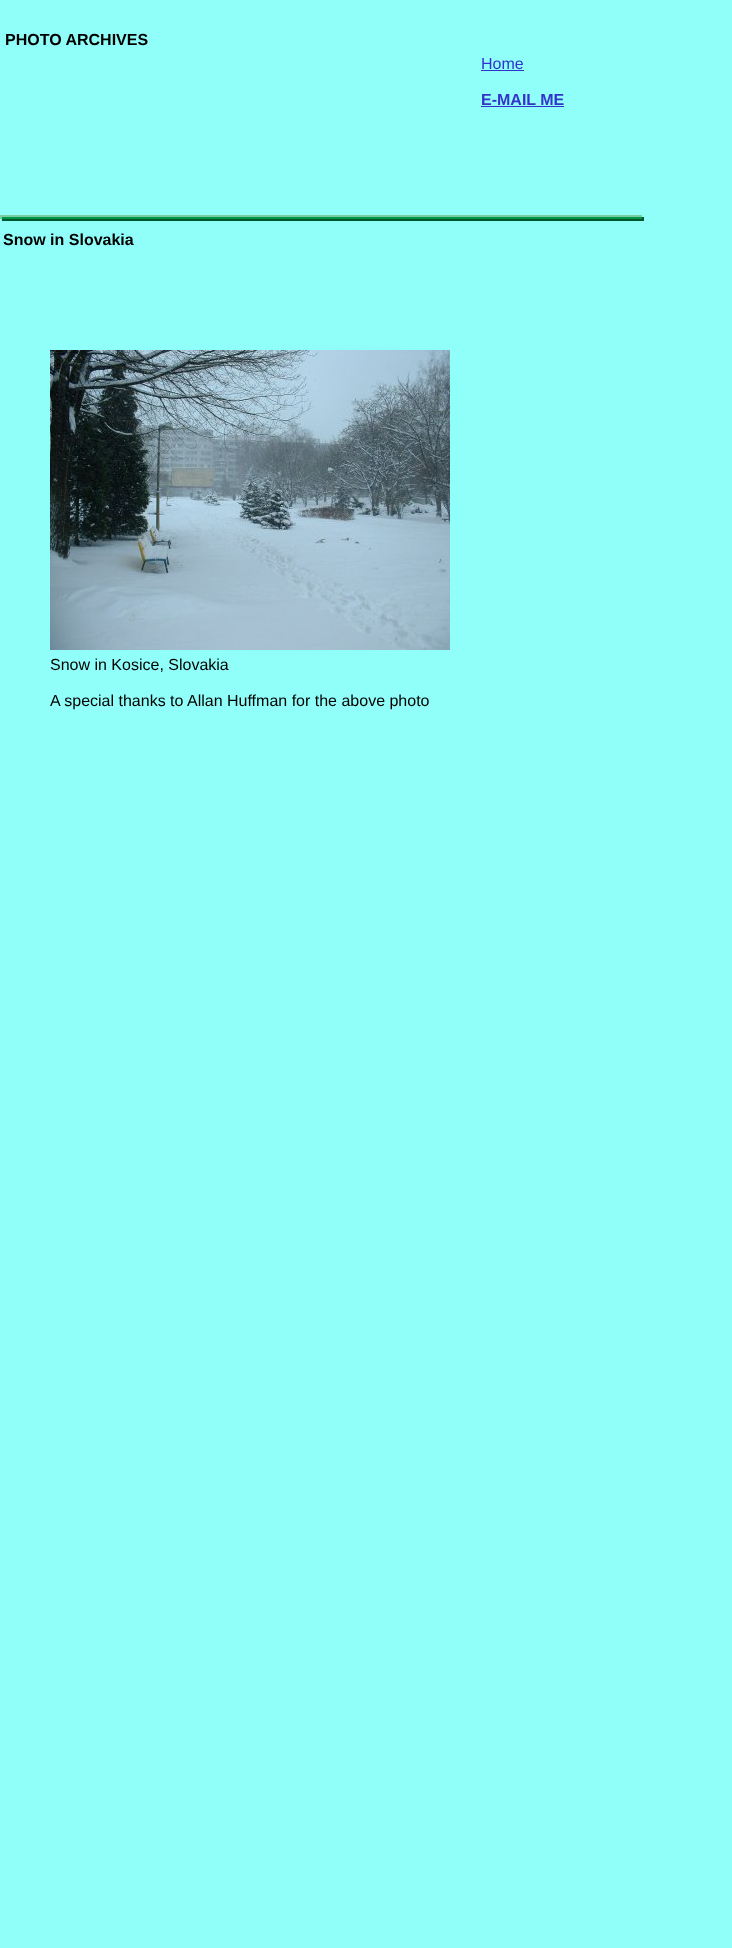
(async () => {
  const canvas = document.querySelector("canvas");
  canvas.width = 732;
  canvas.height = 1948;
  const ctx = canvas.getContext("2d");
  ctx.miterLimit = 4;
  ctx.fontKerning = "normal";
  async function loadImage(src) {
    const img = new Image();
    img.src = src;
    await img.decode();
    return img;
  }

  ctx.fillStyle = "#91fff9";
  ctx.fillRect(0, 0, 732, 1948);
  for (const [x, y, w, h, color] of [
    [481, 70, 43, 1, "#3333cc"],
    [481, 106, 83, 1, "#3333cc"],
    [0, 215, 642, 2, "#7acca3"],
    [0, 217, 2, 2, "#7acca3"],
    [2, 217, 640, 2, "#00964b"],
    [642, 217, 2, 2, "#00582c"],
    [2, 219, 642, 2, "#00582c"],
  ]) {
    ctx.fillStyle = color;
    ctx.fillRect(x, y, w, h);
  }
  ctx.drawImage(await loadImage("img/1.png"), 50, 350, 400, 300);
  ctx.font = "bold 16px Liberation Sans";
  ctx.fillStyle = "#000000";
  ctx.fillText("PHOTO ARCHIVES", 5, 45);
  ctx.font = "16px Liberation Sans";
  ctx.fillStyle = "#3333cc";
  ctx.fillText("Home", 481, 69);
  ctx.font = "bold 16px Liberation Sans";
  ctx.fillText("E-MAIL ME", 481, 105);
  ctx.fillStyle = "#000000";
  ctx.fillText("Snow in Slovakia", 3, 245);
  ctx.font = "16px Liberation Sans";
  ctx.fillText("Snow in Kosice, Slovakia", 50, 670);
  ctx.fillText("A special thanks to Allan Huffman for the above photo", 50, 706);
})();
